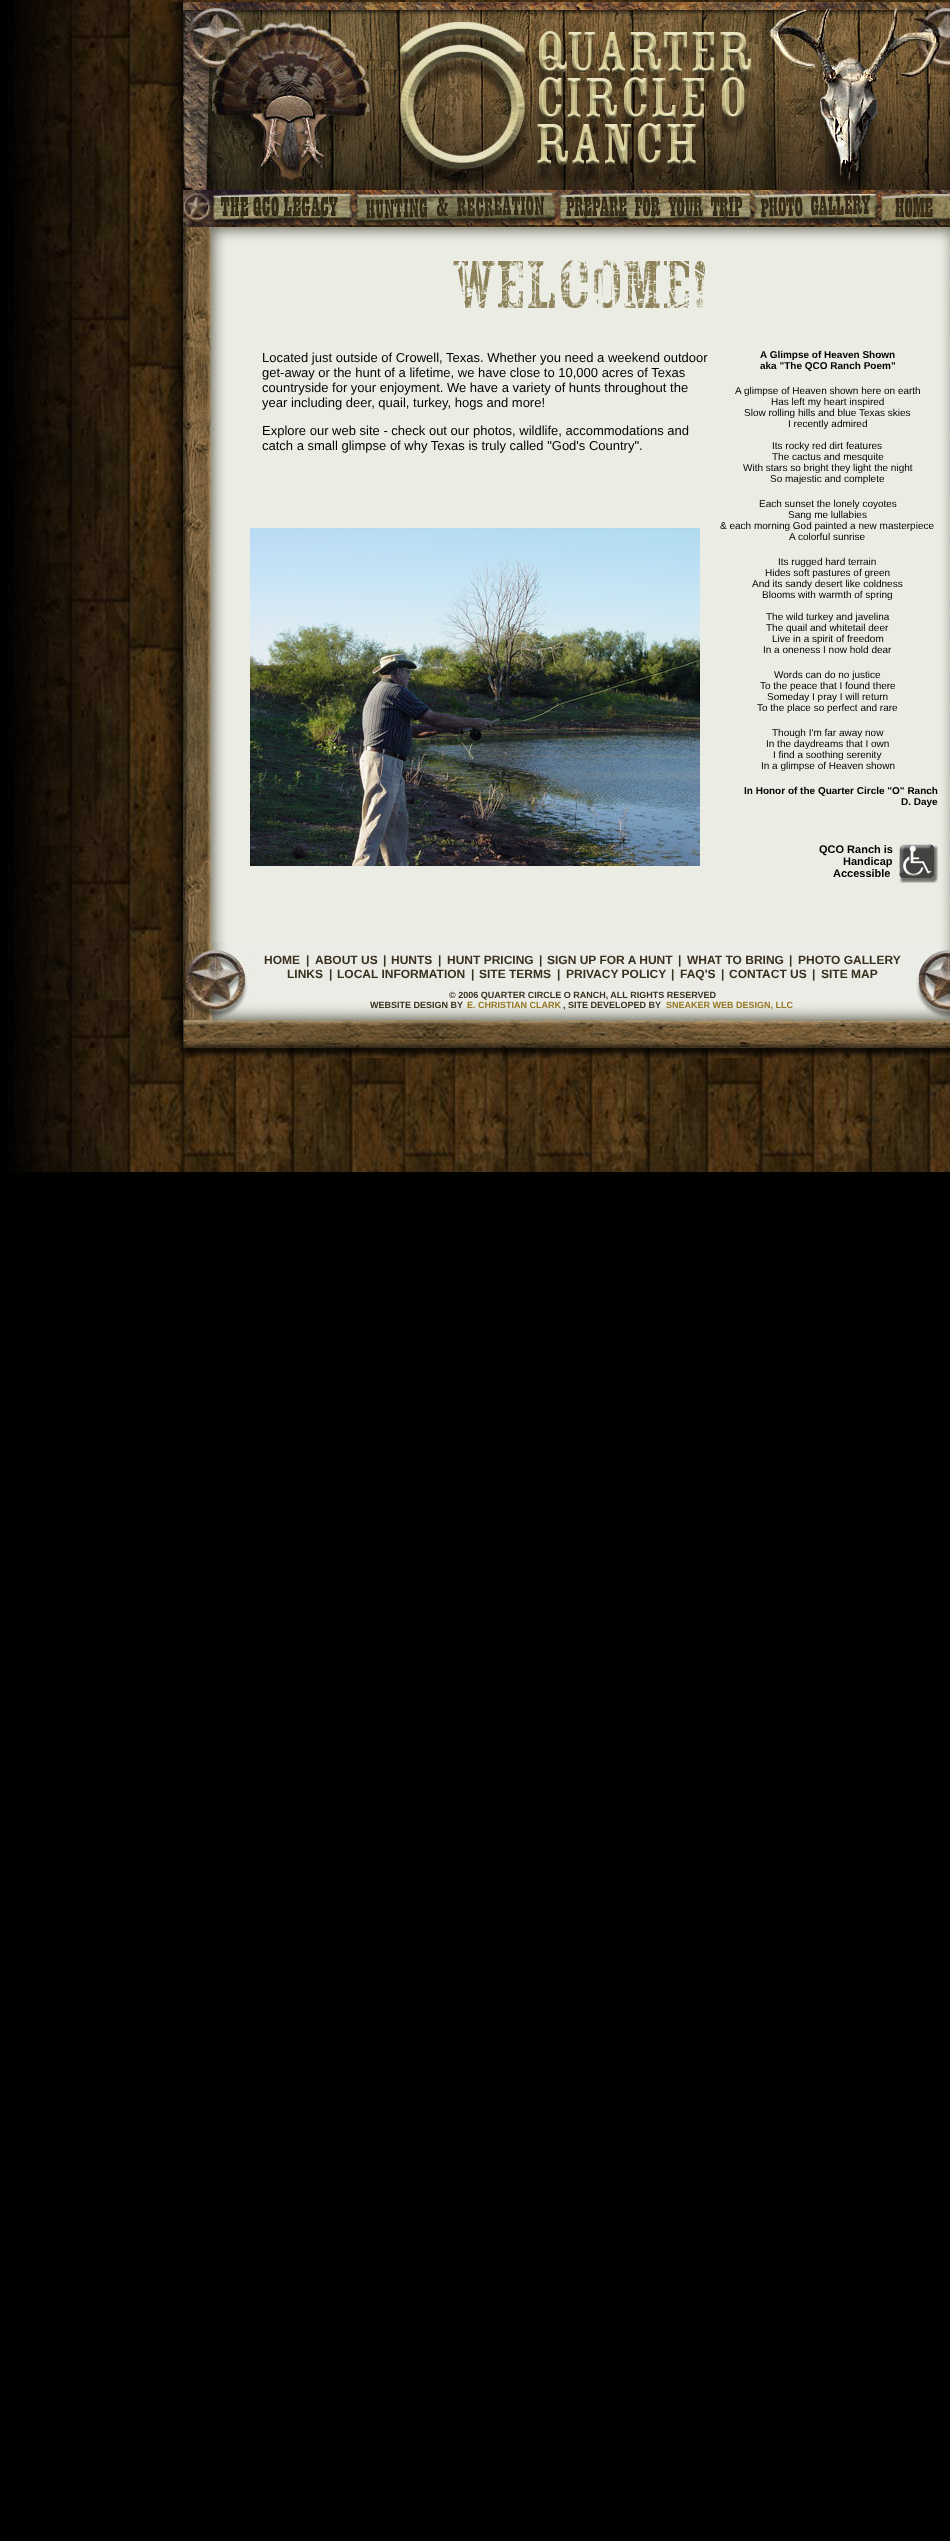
(async () => {
  const canvas = document.querySelector("canvas");
  canvas.width = 950;
  canvas.height = 2541;
  const ctx = canvas.getContext("2d");
  ctx.miterLimit = 4;
  ctx.fontKerning = "normal";
  async function loadImage(src) {
    const img = new Image();
    img.src = src;
    await img.decode();
    return img;
  }

  ctx.fillStyle = "#010100";
  ctx.fillRect(0, 0, 950, 2541);
  ctx.drawImage(await loadImage("img/1.png"), 8, 0, 942, 1172);
  ctx.drawImage(await loadImage("img/2.png"), 161, 2, 789, 187);
  ctx.drawImage(await loadImage("img/3.png"), 161, 189, 789, 1);
  ctx.drawImage(await loadImage("img/4.png"), 161, 190, 51, 37);
  ctx.drawImage(await loadImage("img/5.png"), 212, 190, 141, 37);
  ctx.drawImage(await loadImage("img/6.png"), 353, 190, 204, 37);
  ctx.drawImage(await loadImage("img/7.png"), 557, 190, 195, 37);
  ctx.drawImage(await loadImage("img/8.png"), 752, 190, 127, 37);
  ctx.drawImage(await loadImage("img/9.png"), 879, 190, 71, 37);
  ctx.drawImage(await loadImage("img/10.png"), 161, 227, 50, 715);
  ctx.drawImage(await loadImage("img/11.png"), 211, 227, 739, 715);
  ctx.drawImage(await loadImage("img/12.png"), 453, 260, 252, 48);
  ctx.drawImage(await loadImage("img/13.png"), 899, 844, 39, 39);
  ctx.drawImage(await loadImage("img/14.png"), 250, 528, 450, 338);
  ctx.drawImage(await loadImage("img/15.png"), 161, 942, 789, 116);
  ctx.font = "13px Liberation Sans";
  for (const [text, x, y] of [
    ["Located just outside of Crowell, Texas. Whether you need a weekend outdoor", 262, 362],
    ["get-away or the hunt of a lifetime, we have close to 10,000 acres of Texas", 262, 377],
    ["countryside for your enjoyment. We have a variety of hunts throughout the", 262, 392],
    ["year including deer, quail, turkey, hogs and more!", 262, 407],
    ["Explore our web site - check out our photos, wildlife, accommodations and", 262, 435],
    ["catch a small glimpse of why Texas is truly called \"God's Country\".", 262, 450],
  ]) {
    ctx.fillText(text, x, y);
  }
  ctx.font = "bold 10px Liberation Sans";
  ctx.fillText("A Glimpse of Heaven Shown", 760, 358);
  ctx.fillText("aka \"The QCO Ranch Poem\"", 760, 369);
  ctx.font = "10px Liberation Sans";
  for (const [text, x, y] of [
    ["A glimpse of Heaven shown here on earth", 735, 394],
    ["Has left my heart inspired", 771, 405],
    ["Slow rolling hills and blue Texas skies", 744, 416],
    ["I recently admired", 788, 427],
    ["Its rocky red dirt features", 772, 449],
    ["The cactus and mesquite", 772, 460],
    ["With stars so bright they light the night", 743, 471],
    ["So majestic and complete", 770, 482],
    ["Each sunset the lonely coyotes", 759, 507],
    ["Sang me lullabies", 788, 518],
    ["& each morning God painted a new masterpiece", 720, 529],
    ["A colorful sunrise", 789, 540],
    ["Its rugged hard terrain", 778, 565],
    ["Hides soft pastures of green", 765, 576],
    ["And its sandy desert like coldness", 752, 587],
    ["Blooms with warmth of spring", 762, 598],
    ["The wild turkey and javelina", 766, 620],
    ["The quail and whitetail deer", 766, 631],
    ["Live in a spirit of freedom", 772, 642],
    ["In a oneness I now hold dear", 763, 653],
    ["Words can do no justice", 774, 678],
    ["To the peace that I found there", 760, 689],
    ["Someday I pray I will return", 767, 700],
    ["To the place so perfect and rare", 757, 711],
    ["Though I'm far away now", 772, 736],
    ["In the daydreams that I own", 766, 747],
    ["I find a soothing serenity", 773, 758],
    ["In a glimpse of Heaven shown", 761, 769],
  ]) {
    ctx.fillText(text, x, y);
  }
  ctx.font = "bold 10px Liberation Sans";
  ctx.fillText("In Honor of the Quarter Circle \"O\" Ranch", 744, 794);
  ctx.fillText("D. Daye", 901, 805);
  ctx.font = "bold 11px Liberation Sans";
  for (const [text, x, y] of [
    ["QCO Ranch is", 819, 853],
    ["Handicap", 843, 865],
    ["Accessible", 833, 877],
  ]) {
    ctx.fillText(text, x, y);
  }
  ctx.font = "bold 12px Liberation Sans";
  ctx.fillStyle = "#38311f";
  for (const [text, x, y] of [
    ["HOME", 264, 964],
    ["|", 306, 964],
    ["ABOUT US", 315, 964],
    ["|", 383, 964],
    ["HUNTS", 391, 964],
    ["|", 438, 964],
    ["HUNT PRICING", 447, 964],
    ["|", 539, 964],
    ["SIGN UP FOR A HUNT", 547, 964],
    ["|", 678, 964],
    ["WHAT TO BRING", 687, 964],
    ["|", 789, 964],
    ["PHOTO GALLERY", 798, 964],
    ["LINKS", 287, 978],
    ["|", 329, 978],
    ["LOCAL INFORMATION", 337, 978],
    ["|", 471, 978],
    ["SITE TERMS", 479, 978],
    ["|", 557, 978],
    ["PRIVACY POLICY", 566, 978],
    ["|", 671, 978],
    ["FAQ'S", 680, 978],
    ["|", 721, 978],
    ["CONTACT US", 729, 978],
    ["|", 812, 978],
    ["SITE MAP", 821, 978],
  ]) {
    ctx.fillText(text, x, y);
  }
  ctx.font = "bold 9px Liberation Sans";
  ctx.fillText("© 2006 QUARTER CIRCLE O RANCH, ALL RIGHTS RESERVED", 449, 998);
  ctx.fillText("WEBSITE DESIGN BY", 370, 1008);
  ctx.fillStyle = "#947824";
  ctx.fillText("E. CHRISTIAN CLARK", 467, 1008);
  ctx.fillStyle = "#38311f";
  ctx.fillText(", SITE DEVELOPED BY", 563, 1008);
  ctx.fillStyle = "#947824";
  ctx.fillText("SNEAKER WEB DESIGN, LLC", 666, 1008);
})();
